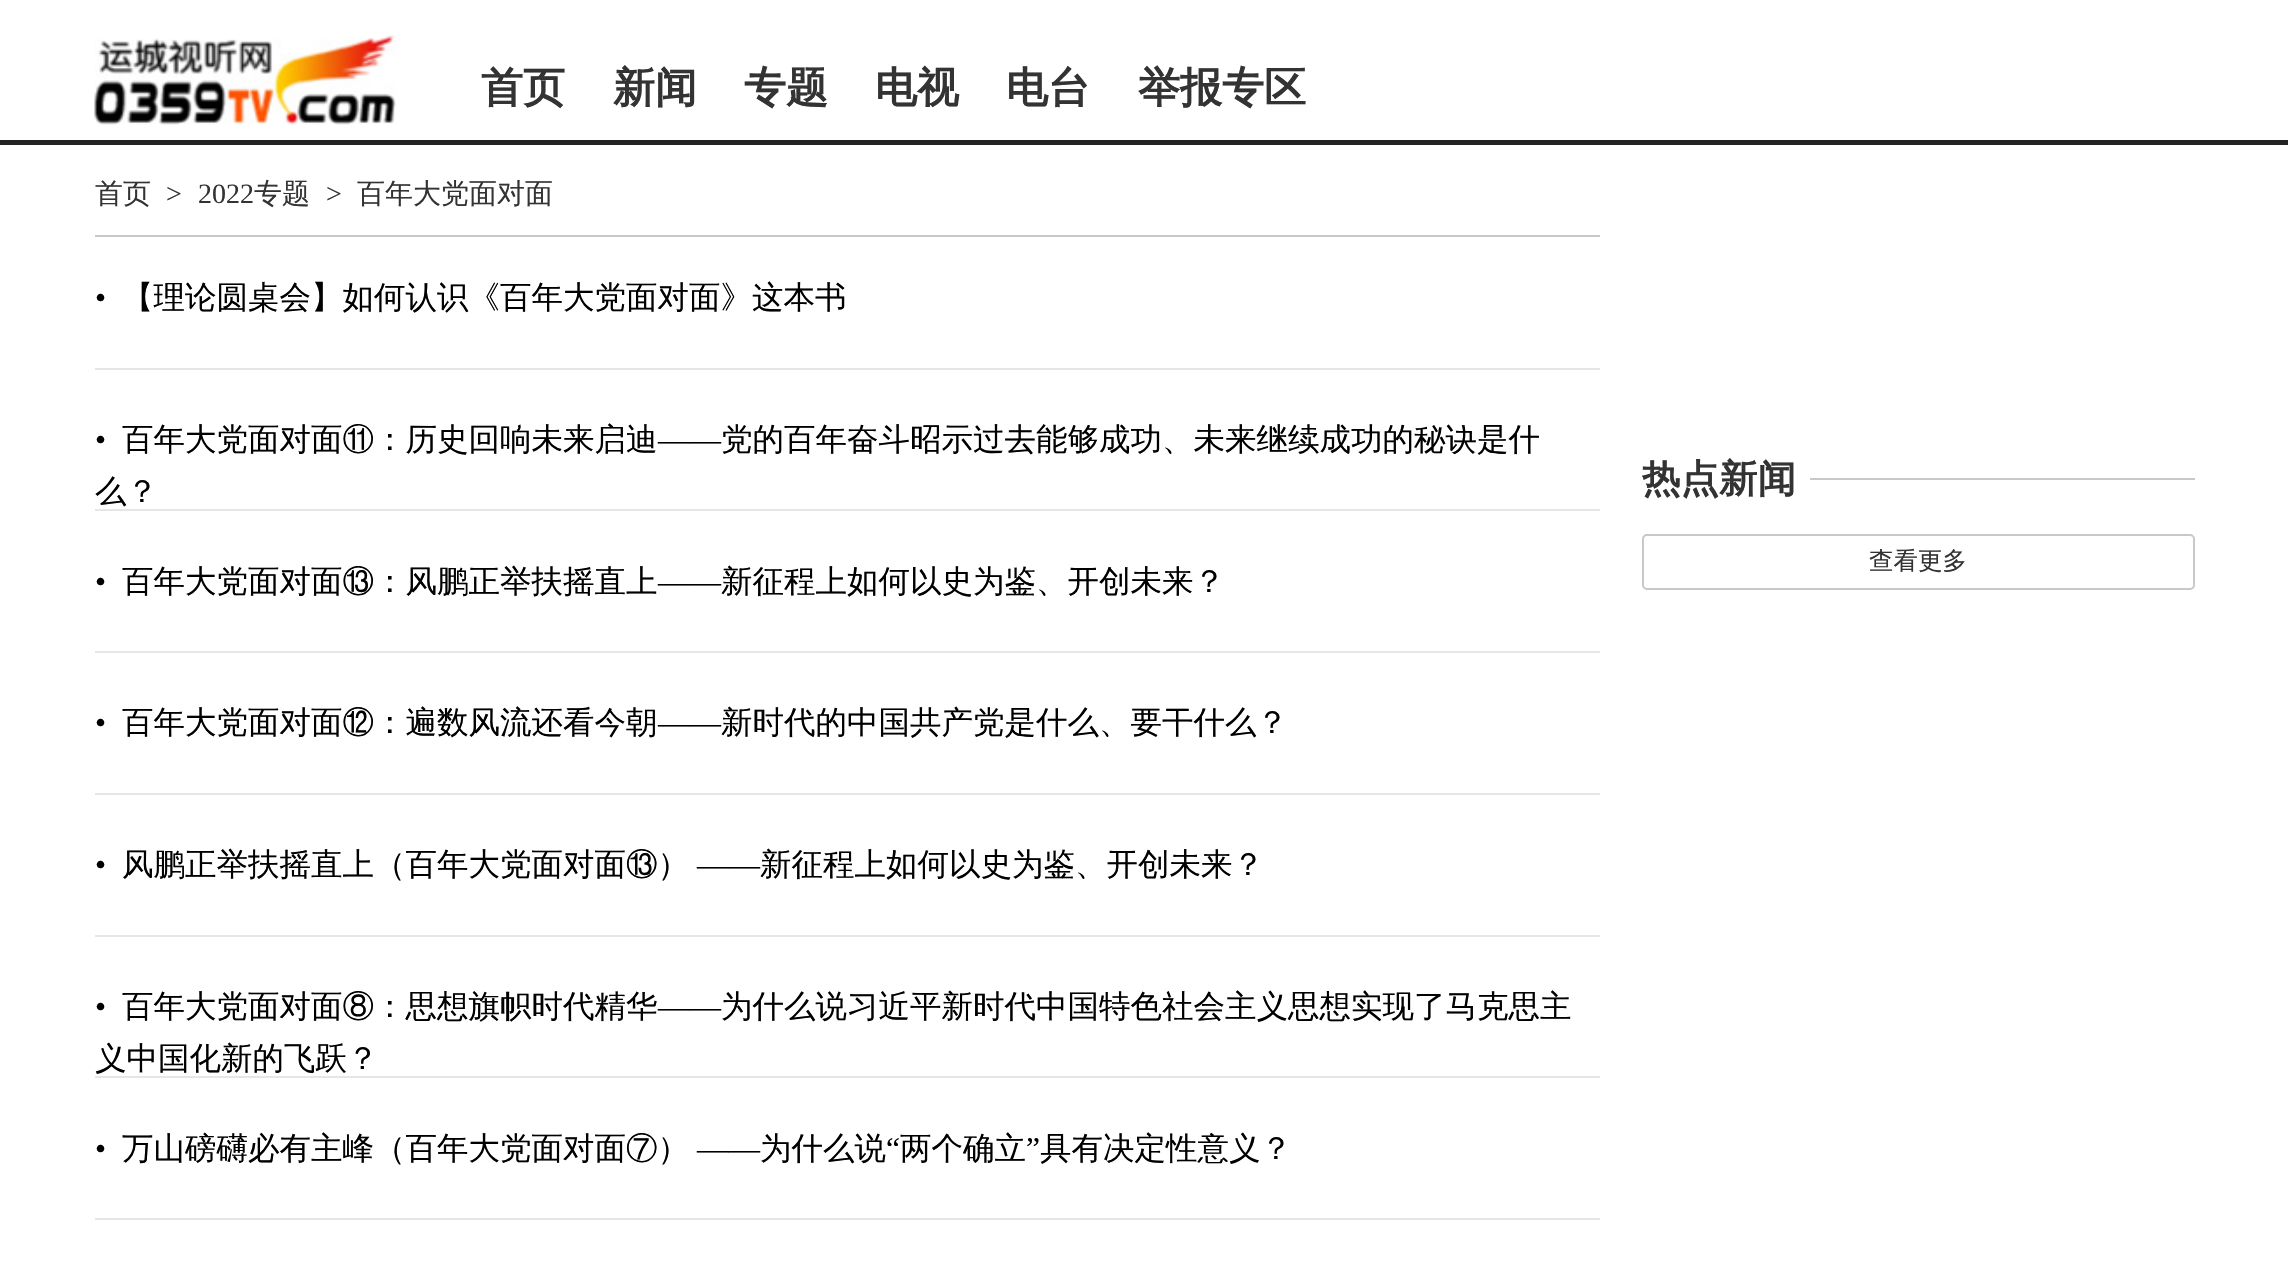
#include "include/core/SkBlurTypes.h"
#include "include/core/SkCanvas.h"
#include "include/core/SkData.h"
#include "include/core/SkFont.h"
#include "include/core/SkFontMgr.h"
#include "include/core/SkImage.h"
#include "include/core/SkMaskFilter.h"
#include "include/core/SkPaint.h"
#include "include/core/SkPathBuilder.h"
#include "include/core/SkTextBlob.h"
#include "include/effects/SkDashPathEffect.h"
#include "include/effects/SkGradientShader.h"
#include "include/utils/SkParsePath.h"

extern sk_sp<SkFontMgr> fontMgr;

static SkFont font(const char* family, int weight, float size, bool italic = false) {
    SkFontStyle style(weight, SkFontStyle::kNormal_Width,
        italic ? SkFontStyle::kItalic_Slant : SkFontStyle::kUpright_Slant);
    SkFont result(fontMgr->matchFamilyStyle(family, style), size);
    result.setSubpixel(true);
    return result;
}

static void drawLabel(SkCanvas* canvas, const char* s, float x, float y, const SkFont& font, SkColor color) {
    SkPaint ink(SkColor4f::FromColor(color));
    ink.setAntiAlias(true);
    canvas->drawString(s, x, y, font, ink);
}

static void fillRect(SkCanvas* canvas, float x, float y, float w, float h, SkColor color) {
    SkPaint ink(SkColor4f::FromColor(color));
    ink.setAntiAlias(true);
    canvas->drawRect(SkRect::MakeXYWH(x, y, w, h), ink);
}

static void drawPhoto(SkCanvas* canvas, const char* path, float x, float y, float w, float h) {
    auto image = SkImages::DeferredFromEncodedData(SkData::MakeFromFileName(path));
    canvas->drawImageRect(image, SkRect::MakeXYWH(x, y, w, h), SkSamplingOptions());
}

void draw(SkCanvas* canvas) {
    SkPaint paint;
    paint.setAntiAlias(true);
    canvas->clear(0xFFFFFFFF);
    fillRect(canvas, 0, 140, 2288, 5, 0xFF232323);
    drawPhoto(canvas, "assets/img1.png", 94, 35, 302, 90);
    SkFont font1 = font("WenQuanYi Zen Hei", 700, 42);
    drawLabel(canvas, "首页", 481, 102, font1, 0xFF333333);
    drawLabel(canvas, "新闻", 613, 102, font1, 0xFF333333);
    drawLabel(canvas, "专题", 744, 102, font1, 0xFF333333);
    drawLabel(canvas, "电视", 875, 102, font1, 0xFF333333);
    drawLabel(canvas, "电台", 1006, 102, font1, 0xFF333333);
    drawLabel(canvas, "举报专区", 1138, 102, font1, 0xFF333333);
    fillRect(canvas, 95, 235, 1505, 2, 0xFFC8C8C8);
    SkFont font2 = font("WenQuanYi Zen Hei", 500, 28);
    drawLabel(canvas, "首页", 95, 203, font2, 0xFF333333);
    SkFont font3 = font("Liberation Serif", 400, 28);
    drawLabel(canvas, ">", 166, 203, font3, 0xFF333333);
    drawLabel(canvas, "2022", 198, 203, font3, 0xFF333333);
    drawLabel(canvas, "专题", 254, 203, font2, 0xFF333333);
    drawLabel(canvas, ">", 326, 203, font3, 0xFF333333);
    drawLabel(canvas, "百年大党面对面", 357, 203, font2, 0xFF333333);
    fillRect(canvas, 95, 368, 1505, 2, 0xFFE6E6E6);
    SkFont font4 = font("Liberation Serif", 400, 31.5f);
    drawLabel(canvas, "•", 95, 308, font4, 0xFF000000);
    SkFont font5 = font("WenQuanYi Zen Hei", 500, 31.5f);
    drawLabel(canvas, "【理论圆桌会】如何认识《百年大党面对面》这本书", 122, 308, font5, 0xFF000000);
    fillRect(canvas, 95, 509, 1505, 2, 0xFFE6E6E6);
    drawLabel(canvas, "•", 95, 450, font4, 0xFF000000);
    drawLabel(canvas, "百年大党面对面⑪：历史回响未来启迪", 122, 450, font5, 0xFF000000);
    drawLabel(canvas, "——", 658, 450, font4, 0xFF000000);
    drawLabel(canvas, "党的百年奋斗昭示过去能够成功、未来继续成功的秘诀是什", 721, 450, font5, 0xFF000000);
    drawLabel(canvas, "么？", 95, 502, font5, 0xFF000000);
    fillRect(canvas, 95, 651, 1505, 2, 0xFFE6E6E6);
    drawLabel(canvas, "•", 95, 592, font4, 0xFF000000);
    drawLabel(canvas, "百年大党面对面⑬：风鹏正举扶摇直上", 122, 592, font5, 0xFF000000);
    drawLabel(canvas, "——", 658, 592, font4, 0xFF000000);
    drawLabel(canvas, "新征程上如何以史为鉴、开创未来？", 721, 592, font5, 0xFF000000);
    fillRect(canvas, 95, 793, 1505, 2, 0xFFE6E6E6);
    drawLabel(canvas, "•", 95, 733, font4, 0xFF000000);
    drawLabel(canvas, "百年大党面对面⑫：遍数风流还看今朝", 122, 733, font5, 0xFF000000);
    drawLabel(canvas, "——", 658, 733, font4, 0xFF000000);
    drawLabel(canvas, "新时代的中国共产党是什么、要干什么？", 721, 733, font5, 0xFF000000);
    fillRect(canvas, 95, 935, 1505, 2, 0xFFE6E6E6);
    drawLabel(canvas, "•", 95, 875, font4, 0xFF000000);
    drawLabel(canvas, "风鹏正举扶摇直上（百年大党面对面⑬）", 122, 875, font5, 0xFF000000);
    drawLabel(canvas, "——", 697, 875, font4, 0xFF000000);
    drawLabel(canvas, "新征程上如何以史为鉴、开创未来？", 760, 875, font5, 0xFF000000);
    fillRect(canvas, 95, 1076, 1505, 2, 0xFFE6E6E6);
    drawLabel(canvas, "•", 95, 1017, font4, 0xFF000000);
    drawLabel(canvas, "百年大党面对面⑧：思想旗帜时代精华", 122, 1017, font5, 0xFF000000);
    drawLabel(canvas, "——", 658, 1017, font4, 0xFF000000);
    drawLabel(canvas, "为什么说习近平新时代中国特色社会主义思想实现了马克思主", 721, 1017, font5, 0xFF000000);
    drawLabel(canvas, "义中国化新的飞跃？", 95, 1069, font5, 0xFF000000);
    fillRect(canvas, 95, 1218, 1505, 2, 0xFFE6E6E6);
    drawLabel(canvas, "万山磅礴必有主峰（百年大党面对面⑦）", 122, 1159, font5, 0xFF000000);
    drawLabel(canvas, "为什么说", 760, 1159, font5, 0xFF000000);
    drawLabel(canvas, "“", 886, 1159, font4, 0xFF000000);
    drawLabel(canvas, "两个确立", 900, 1159, font5, 0xFF000000);
    drawLabel(canvas, "”", 1026, 1159, font4, 0xFF000000);
    drawLabel(canvas, "具有决定性意义？", 1040, 1159, font5, 0xFF000000);
    drawLabel(canvas, "•", 95, 1159, font4, 0xFF000000);
    drawLabel(canvas, "——", 697, 1159, font4, 0xFF000000);
    SkFont font6 = font("WenQuanYi Zen Hei", 700, 38.5f);
    drawLabel(canvas, "热点新闻", 1642, 492, font6, 0xFF333333);
    fillRect(canvas, 1810, 478, 385, 2, 0xFFC8C8C8);
    paint.setStroke(true);
    paint.setStrokeWidth(2);
    paint.setColor(0xFFC8C8C8);
    canvas->drawRoundRect(SkRect::MakeXYWH(1643, 535, 551, 54), 4, 4, paint);
    SkFont font7 = font("WenQuanYi Zen Hei", 500, 24.5f);
    drawLabel(canvas, "查看更多", 1869, 569, font7, 0xFF333333);
}
